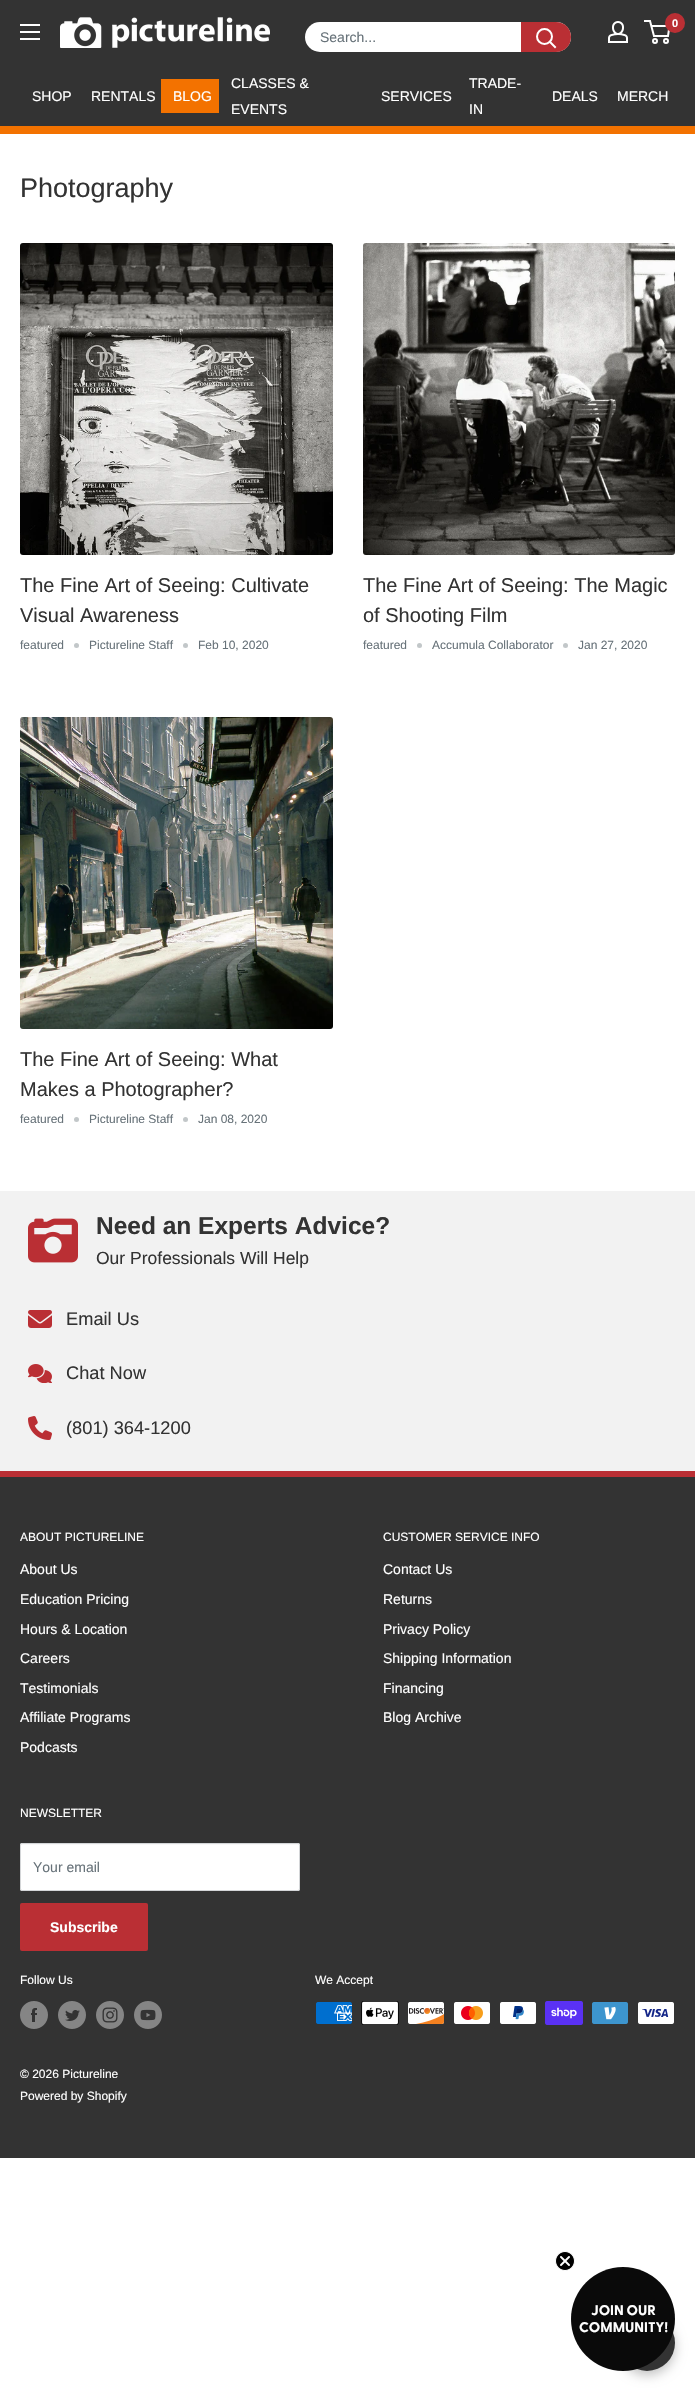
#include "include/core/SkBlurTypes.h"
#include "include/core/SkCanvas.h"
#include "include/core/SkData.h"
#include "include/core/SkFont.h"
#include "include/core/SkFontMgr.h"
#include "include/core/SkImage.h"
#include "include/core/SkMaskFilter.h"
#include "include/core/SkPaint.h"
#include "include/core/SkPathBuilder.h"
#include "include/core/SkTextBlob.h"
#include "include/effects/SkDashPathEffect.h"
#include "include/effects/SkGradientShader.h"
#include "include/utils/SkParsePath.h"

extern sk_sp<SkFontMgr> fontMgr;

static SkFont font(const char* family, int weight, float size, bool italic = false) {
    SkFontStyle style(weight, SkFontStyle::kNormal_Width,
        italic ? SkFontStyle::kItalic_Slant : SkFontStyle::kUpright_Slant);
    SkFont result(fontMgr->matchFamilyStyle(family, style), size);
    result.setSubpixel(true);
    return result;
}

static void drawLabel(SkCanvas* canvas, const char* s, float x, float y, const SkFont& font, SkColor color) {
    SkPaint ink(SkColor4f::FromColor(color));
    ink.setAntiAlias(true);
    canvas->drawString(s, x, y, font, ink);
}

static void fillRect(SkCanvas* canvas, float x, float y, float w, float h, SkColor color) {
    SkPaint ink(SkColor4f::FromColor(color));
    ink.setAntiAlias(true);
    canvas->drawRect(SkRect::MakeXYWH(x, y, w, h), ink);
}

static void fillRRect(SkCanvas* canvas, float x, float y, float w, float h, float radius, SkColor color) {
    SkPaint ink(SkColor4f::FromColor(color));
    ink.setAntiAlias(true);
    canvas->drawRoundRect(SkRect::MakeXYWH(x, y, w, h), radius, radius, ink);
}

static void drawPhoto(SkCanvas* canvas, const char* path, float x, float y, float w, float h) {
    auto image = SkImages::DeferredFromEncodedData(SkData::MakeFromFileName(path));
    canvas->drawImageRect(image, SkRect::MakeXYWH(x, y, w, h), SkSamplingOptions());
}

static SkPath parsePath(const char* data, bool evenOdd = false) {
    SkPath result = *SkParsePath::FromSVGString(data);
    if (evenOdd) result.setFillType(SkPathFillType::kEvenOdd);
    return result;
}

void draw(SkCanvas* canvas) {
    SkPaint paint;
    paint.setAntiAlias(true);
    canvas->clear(0xFFFFFFFF);
    fillRect(canvas, 0, 0, 695, 126, 0xFF333333);
    drawPhoto(canvas, "assets/img1.png", 20, 24, 20, 16);
    drawPhoto(canvas, "assets/img2.png", 60, 17, 210, 31);
    fillRRect(canvas, 305, 22, 266, 30, 15, 0xFFFFFFFF);
    SkFont font1 = font("Liberation Sans", 400, 14);
    drawLabel(canvas, "Search...", 320, 42, font1, 0xFF677279);
    paint.setColor(0xFFBA2F34);
    canvas->drawPath(parsePath("M521 22H556C564.5 22 571 28.5 571 37C571 45.5 564.5 52 556 52H521Z"), paint);
    paint.setStroke(true);
    paint.setStrokeWidth(2);
    paint.setStrokeCap(SkPaint::kSquare_Cap);
    paint.setColor(0xFFFFFFFF);
    canvas->drawPath(parsePath("M555 47L550 42"), paint);
    paint.setStrokeCap(SkPaint::kButt_Cap);
    canvas->drawCircle(544.5f, 36.5f, 7.5f, paint);
    drawPhoto(canvas, "assets/img3.png", 608, 21, 20, 22);
    canvas->drawCircle(655, 41, 2, paint);
    canvas->drawCircle(666, 41, 2, paint);
    canvas->drawPath(parsePath("M651.5 26H669.5L668 36H654L650 21H644"), paint);
    paint.setStroke(false);
    paint.setColor(0xFFBA2F34);
    canvas->drawCircle(675, 23, 10, paint);
    SkFont font2 = font("Liberation Sans", 700, 11);
    drawLabel(canvas, "0", 672, 27, font2, 0xFFFFFFFF);
    drawLabel(canvas, "SHOP", 32, 101, font1, 0xFFFFFFFF);
    drawLabel(canvas, "RENTALS", 91, 101, font1, 0xFFFFFFFF);
    fillRect(canvas, 161, 79, 58, 34, 0xFFF37200);
    drawLabel(canvas, "BLOG", 173, 101, font1, 0xFFFFFFFF);
    drawLabel(canvas, "CLASSES &", 231, 88, font1, 0xFFFFFFFF);
    drawLabel(canvas, "EVENTS", 231, 114, font1, 0xFFFFFFFF);
    drawLabel(canvas, "SERVICES", 381, 101, font1, 0xFFFFFFFF);
    drawLabel(canvas, "TRADE-", 469, 88, font1, 0xFFFFFFFF);
    drawLabel(canvas, "IN", 469, 114, font1, 0xFFFFFFFF);
    drawLabel(canvas, "DEALS", 552, 101, font1, 0xFFFFFFFF);
    drawLabel(canvas, "MERCH", 617, 101, font1, 0xFFFFFFFF);
    fillRect(canvas, 0, 126, 695, 8, 0xFFF37200);
    SkFont font3 = font("Liberation Sans", 400, 27);
    drawLabel(canvas, "Photography", 20, 197, font3, 0xFF333333);
    drawPhoto(canvas, "assets/img4.png", 20, 243, 313, 312);
    SkFont font4 = font("Liberation Sans", 400, 20);
    drawLabel(canvas, "The Fine Art of Seeing: Cultivate", 20, 592, font4, 0xFF333333);
    drawLabel(canvas, "Visual Awareness", 20, 622, font4, 0xFF333333);
    SkFont font5 = font("Liberation Sans", 400, 12);
    drawLabel(canvas, "featured", 20, 649, font5, 0xFF677279);
    paint.setColor(0xFFC2C7C9);
    canvas->drawCircle(76.5f, 645.5f, 2.5f, paint);
    drawLabel(canvas, "Pictureline Staff", 89, 649, font5, 0xFF677279);
    canvas->drawCircle(185.5f, 645.5f, 2.5f, paint);
    drawLabel(canvas, "Feb 10, 2020", 198, 649, font5, 0xFF677279);
    drawPhoto(canvas, "assets/img5.png", 363, 243, 312, 312);
    drawLabel(canvas, "The Fine Art of Seeing: The Magic", 363, 592, font4, 0xFF333333);
    drawLabel(canvas, "of Shooting Film", 363, 622, font4, 0xFF333333);
    drawLabel(canvas, "featured", 363, 649, font5, 0xFF677279);
    canvas->drawCircle(419.5f, 645.5f, 2.5f, paint);
    drawLabel(canvas, "Accumula Collaborator", 432, 649, font5, 0xFF677279);
    canvas->drawCircle(565.5f, 645.5f, 2.5f, paint);
    drawLabel(canvas, "Jan 27, 2020", 578, 649, font5, 0xFF677279);
    drawPhoto(canvas, "assets/img6.png", 20, 717, 313, 312);
    drawLabel(canvas, "The Fine Art of Seeing: What", 20, 1066, font4, 0xFF333333);
    drawLabel(canvas, "Makes a Photographer?", 20, 1096, font4, 0xFF333333);
    drawLabel(canvas, "featured", 20, 1123, font5, 0xFF677279);
    canvas->drawCircle(76.5f, 1119.5f, 2.5f, paint);
    drawLabel(canvas, "Pictureline Staff", 89, 1123, font5, 0xFF677279);
    canvas->drawCircle(185.5f, 1119.5f, 2.5f, paint);
    drawLabel(canvas, "Jan 08, 2020", 198, 1123, font5, 0xFF677279);
    fillRect(canvas, 0, 1191, 695, 280, 0xFFF2F2F2);
    drawPhoto(canvas, "assets/img7.png", 28, 1218, 50, 45);
    SkFont font6 = font("Liberation Sans", 700, 24.5f);
    drawLabel(canvas, "Need an Experts Advice?", 96, 1234, font6, 0xFF333333);
    SkFont font7 = font("Liberation Sans", 400, 17.5f);
    drawLabel(canvas, "Our Professionals Will Help", 96, 1264, font7, 0xFF333333);
    drawPhoto(canvas, "assets/img8.png", 28, 1310, 24, 18);
    SkFont font8 = font("Liberation Sans", 400, 18.25f);
    drawLabel(canvas, "Email Us", 66, 1325, font8, 0xFF333333);
    drawPhoto(canvas, "assets/img9.png", 28, 1364, 24, 19);
    drawLabel(canvas, "Chat Now", 66, 1379, font8, 0xFF333333);
    drawPhoto(canvas, "assets/img10.png", 28, 1416, 24, 24);
    drawLabel(canvas, "(801) 364-1200", 66, 1434, font8, 0xFF333333);
    fillRect(canvas, 0, 1471, 695, 6, 0xFFBA2F34);
    fillRect(canvas, 0, 1477, 695, 681, 0xFF333333);
    drawLabel(canvas, "ABOUT PICTURELINE", 20, 1541, font5, 0xFFFFFFFF);
    drawLabel(canvas, "About Us", 20, 1574, font1, 0xFFFFFFFF);
    drawLabel(canvas, "Education Pricing", 20, 1604, font1, 0xFFFFFFFF);
    drawLabel(canvas, "Hours & Location", 20, 1634, font1, 0xFFFFFFFF);
    drawLabel(canvas, "Careers", 20, 1663, font1, 0xFFFFFFFF);
    drawLabel(canvas, "Testimonials", 20, 1693, font1, 0xFFFFFFFF);
    drawLabel(canvas, "Affiliate Programs", 20, 1722, font1, 0xFFFFFFFF);
    drawLabel(canvas, "Podcasts", 20, 1752, font1, 0xFFFFFFFF);
    drawLabel(canvas, "CUSTOMER SERVICE INFO", 383, 1541, font5, 0xFFFFFFFF);
    drawLabel(canvas, "Contact Us", 383, 1574, font1, 0xFFFFFFFF);
    drawLabel(canvas, "Returns", 383, 1604, font1, 0xFFFFFFFF);
    drawLabel(canvas, "Privacy Policy", 383, 1634, font1, 0xFFFFFFFF);
    drawLabel(canvas, "Shipping Information", 383, 1663, font1, 0xFFFFFFFF);
    drawLabel(canvas, "Financing", 383, 1693, font1, 0xFFFFFFFF);
    drawLabel(canvas, "Blog Archive", 383, 1722, font1, 0xFFFFFFFF);
    drawLabel(canvas, "NEWSLETTER", 20, 1817, font5, 0xFFFFFFFF);
    fillRRect(canvas, 20, 1843, 280, 48, 2, 0xFFFFFFFF);
    paint.setColor(0xFFF8F8F8);
    canvas->drawPath(parsePath("M22 1845H298C299 1845 299 1845 299 1846C299 1845 299 1844 298 1844H22H21V1846C21 1845 21 1845 22 1845Z"), paint);
    paint.setStroke(true);
    paint.setStrokeWidth(1);
    paint.setColor(0xFFD4D6D8);
    canvas->drawRoundRect(SkRect::MakeXYWH(20.5f, 1843.5f, 279, 47), 1.5f, 1.5f, paint);
    drawLabel(canvas, "Your email", 33, 1872, font1, 0xFF677279);
    fillRRect(canvas, 20, 1903, 128, 48, 2, 0xFFBA2F34);
    SkFont font9 = font("Liberation Sans", 700, 14);
    drawLabel(canvas, "Subscribe", 50, 1932, font9, 0xFFFFFFFF);
    drawLabel(canvas, "Follow Us", 20, 1984, font5, 0xFFFFFFFF);
    drawPhoto(canvas, "assets/img11.png", 20, 2001, 28, 28);
    drawPhoto(canvas, "assets/img12.png", 58, 2001, 28, 28);
    drawPhoto(canvas, "assets/img13.png", 96, 2001, 28, 28);
    drawPhoto(canvas, "assets/img14.png", 134, 2001, 28, 28);
    drawLabel(canvas, "We Accept", 315, 1984, font5, 0xFFFFFFFF);
    drawPhoto(canvas, "assets/img15.png", 316, 2002, 36, 22);
    drawPhoto(canvas, "assets/img16.png", 361, 2001, 38, 24);
    drawPhoto(canvas, "assets/img17.png", 408, 2002, 36, 22);
    drawPhoto(canvas, "assets/img18.png", 454, 2002, 36, 22);
    drawPhoto(canvas, "assets/img19.png", 500, 2002, 36, 22);
    drawPhoto(canvas, "assets/img20.png", 545, 2001, 38, 24);
    drawPhoto(canvas, "assets/img21.png", 592, 2002, 36, 22);
    drawPhoto(canvas, "assets/img22.png", 638, 2002, 36, 22);
    drawLabel(canvas, "© 2026 Pictureline", 20, 2078, font5, 0xFFFFFFFF);
    drawLabel(canvas, "Powered by Shopify", 20, 2100, font5, 0xFFFFFFFF);
    paint.setStroke(false);
    paint.setColor(0x40000000);
    paint.setMaskFilter(SkMaskFilter::MakeBlur(kNormal_SkBlurStyle, 6));
    canvas->drawRoundRect(SkRect::MakeXYWH(619, 2319, 56, 56), 28, 28, paint);
    paint.setMaskFilter(nullptr);
    paint.setColor(0xFF333333);
    canvas->drawCircle(647, 2343, 28, paint);
    paint.setColor(0xFF0A0A0A);
    canvas->drawCircle(623, 2319, 52, paint);
    drawPhoto(canvas, "assets/img23.png", 555, 2251, 20, 20);
    SkFont font10 = font("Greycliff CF", 700, 14);
    drawLabel(canvas, "JOIN OUR", 591, 2315, font10, 0xFFFFFFFF);
    drawLabel(canvas, "COMMUNITY!", 579, 2332, font10, 0xFFFFFFFF);
}
